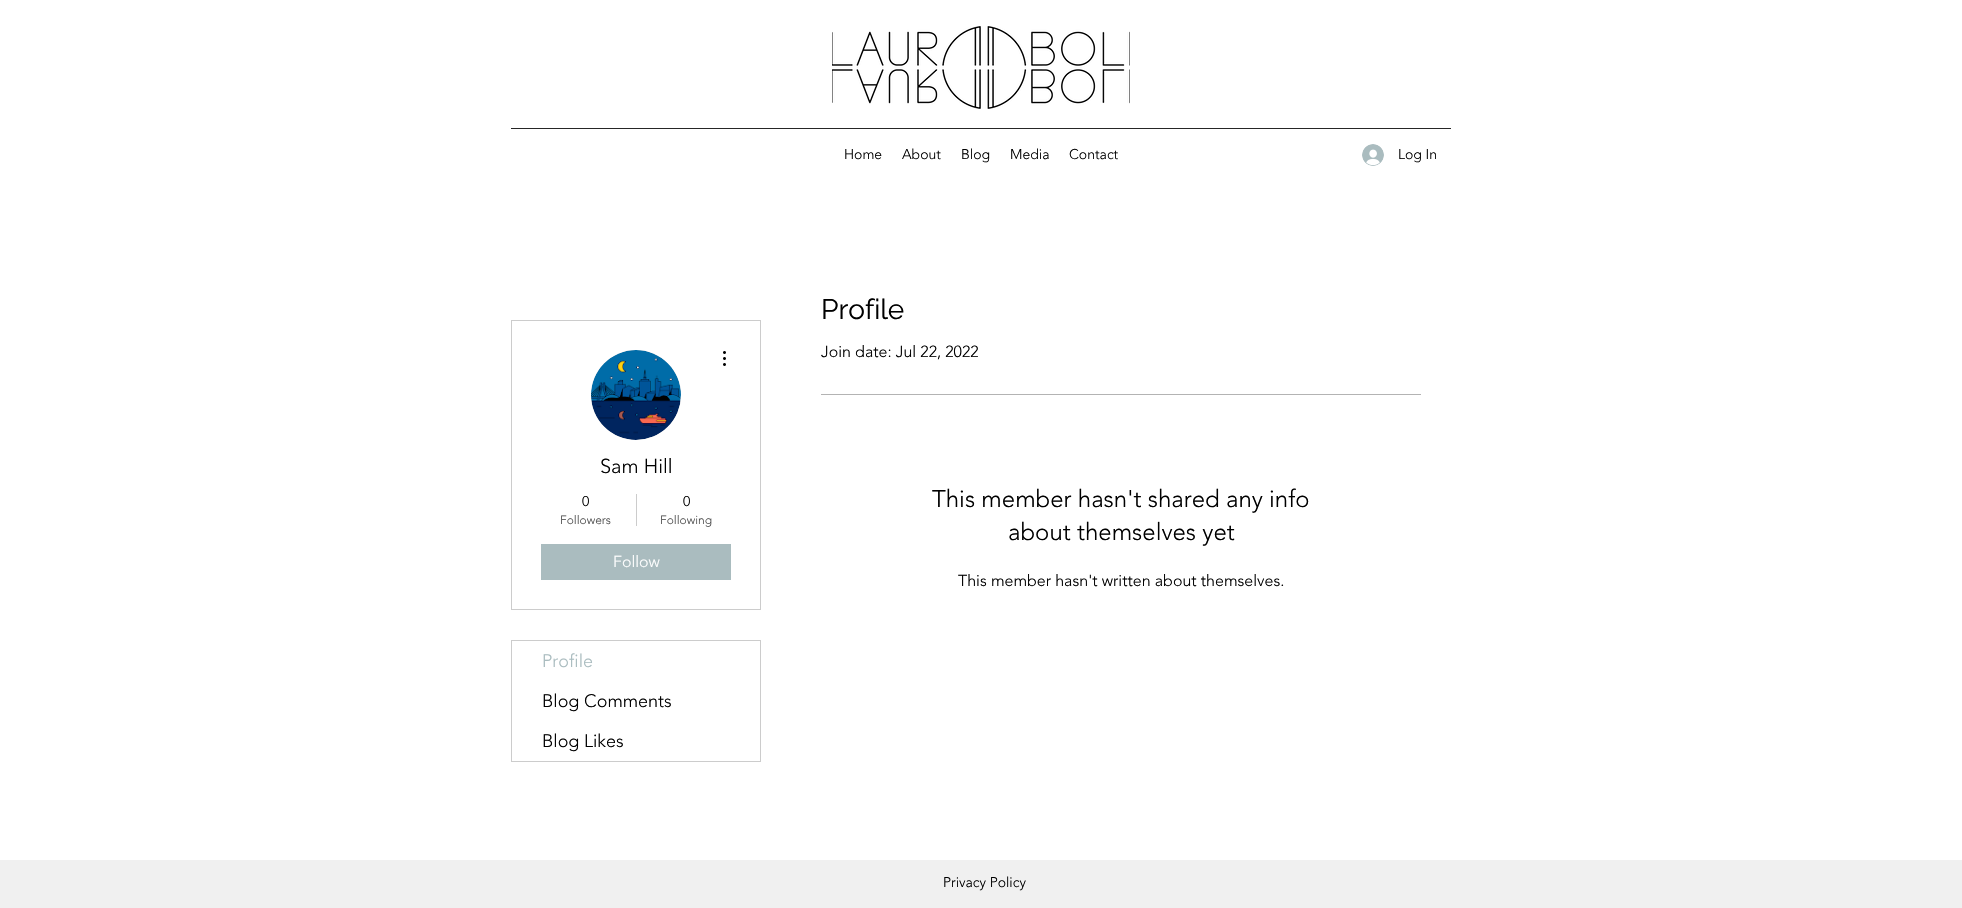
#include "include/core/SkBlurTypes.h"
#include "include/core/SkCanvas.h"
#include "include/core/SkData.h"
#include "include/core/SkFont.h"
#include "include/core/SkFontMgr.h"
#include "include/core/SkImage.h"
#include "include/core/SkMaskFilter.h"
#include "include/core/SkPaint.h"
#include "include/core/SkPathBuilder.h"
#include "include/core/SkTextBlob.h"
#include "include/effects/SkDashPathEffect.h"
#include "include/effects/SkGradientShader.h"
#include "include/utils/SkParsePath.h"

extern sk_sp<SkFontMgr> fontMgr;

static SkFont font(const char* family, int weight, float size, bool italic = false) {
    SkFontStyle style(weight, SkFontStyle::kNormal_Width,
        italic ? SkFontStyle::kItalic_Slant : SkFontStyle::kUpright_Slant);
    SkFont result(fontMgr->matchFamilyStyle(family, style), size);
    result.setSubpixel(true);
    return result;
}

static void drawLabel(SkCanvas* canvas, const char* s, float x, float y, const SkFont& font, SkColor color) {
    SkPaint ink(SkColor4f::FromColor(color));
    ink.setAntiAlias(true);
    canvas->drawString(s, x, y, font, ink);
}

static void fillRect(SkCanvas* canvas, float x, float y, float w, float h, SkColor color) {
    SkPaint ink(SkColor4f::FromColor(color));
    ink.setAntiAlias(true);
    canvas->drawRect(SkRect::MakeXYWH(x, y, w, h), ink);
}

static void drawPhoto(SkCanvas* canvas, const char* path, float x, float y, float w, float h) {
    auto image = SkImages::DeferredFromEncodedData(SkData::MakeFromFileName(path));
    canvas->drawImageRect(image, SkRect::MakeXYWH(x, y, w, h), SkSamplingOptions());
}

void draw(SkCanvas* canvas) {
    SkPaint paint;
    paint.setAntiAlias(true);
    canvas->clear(0xFFFFFFFF);
    drawPhoto(canvas, "assets/img1.png", 832, 26, 298, 83);
    fillRect(canvas, 511, 128, 940, 1, 0xFF262626);
    SkFont font1 = font("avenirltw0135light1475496", 300, 14);
    drawLabel(canvas, "Home", 844, 159, font1, 0xFF000000);
    drawLabel(canvas, "About", 902, 159, font1, 0xFF000000);
    drawLabel(canvas, "Blog", 961, 159, font1, 0xFF000000);
    drawLabel(canvas, "Media", 1010, 159, font1, 0xFF000000);
    drawLabel(canvas, "Contact", 1069, 159, font1, 0xFF000000);
    drawPhoto(canvas, "assets/img2.png", 1362, 144, 22, 22);
    drawLabel(canvas, "Log In", 1398, 159, font1, 0xFF000000);
    paint.setStroke(true);
    paint.setStrokeWidth(1);
    paint.setColor(0xFFCCCCCC);
    canvas->drawRect(SkRect::MakeXYWH(511.5f, 320.5f, 249, 289), paint);
    paint.setStroke(false);
    paint.setColor(0xFFD8D8D8);
    canvas->drawCircle(636, 395, 45, paint);
    drawPhoto(canvas, "assets/img3.png", 591, 350, 90, 90);
    drawPhoto(canvas, "assets/img4.png", 723, 351, 3, 15);
    SkFont font2 = font("avenirltw0135light1475496", 300, 20);
    drawLabel(canvas, "Sam Hill", 600, 473, font2, 0xFF000000);
    drawLabel(canvas, "0", 582, 506, font1, 0xFF000000);
    SkFont font3 = font("avenirltw0135light1475496", 300, 12);
    drawLabel(canvas, "Followers", 560, 524, font3, 0xFF4D4D4D);
    fillRect(canvas, 636, 494, 1, 32, 0xFFCCCCCC);
    drawLabel(canvas, "0", 683, 506, font1, 0xFF000000);
    drawLabel(canvas, "Following", 660, 524, font3, 0xFF4D4D4D);
    fillRect(canvas, 541, 544, 190, 36, 0xFFAABCBF);
    SkFont font4 = font("avenirltw0135light1475496", 300, 16);
    drawLabel(canvas, "Follow", 613, 567, font4, 0xFFFFFFFF);
    paint.setStroke(true);
    paint.setColor(0xFFCCCCCC);
    canvas->drawRect(SkRect::MakeXYWH(511.5f, 640.5f, 249, 121), paint);
    SkFont font5 = font("avenirltw0135light1475496", 300, 18);
    drawLabel(canvas, "Profile", 542, 667, font5, 0xFFAABCBF);
    drawLabel(canvas, "Blog Comments", 542, 707, font5, 0xFF000000);
    drawLabel(canvas, "Blog Likes", 542, 747, font5, 0xFF000000);
    SkFont font6 = font("Raleway", 400, 28);
    drawLabel(canvas, "Profile", 821, 319, font6, 0xFF000000);
    drawLabel(canvas, "Join date: Jul 22, 2022", 821, 357, font4, 0xFF000000);
    fillRect(canvas, 821, 394, 600, 1, 0xFFB3B3B3);
    SkFont font7 = font("avenirltw0135light1475496", 300, 24);
    drawLabel(canvas, "This member hasn't shared any info", 932, 507, font7, 0xFF000000);
    drawLabel(canvas, "about themselves yet", 1008, 540, font7, 0xFF000000);
    drawLabel(canvas, "This member hasn't written about themselves.", 958, 586, font4, 0xFF000000);
    fillRect(canvas, 0, 860, 1962, 48, 0xFFF0F0F0);
    drawLabel(canvas, "Privacy Policy", 943, 887, font1, 0xFF000000);
}
